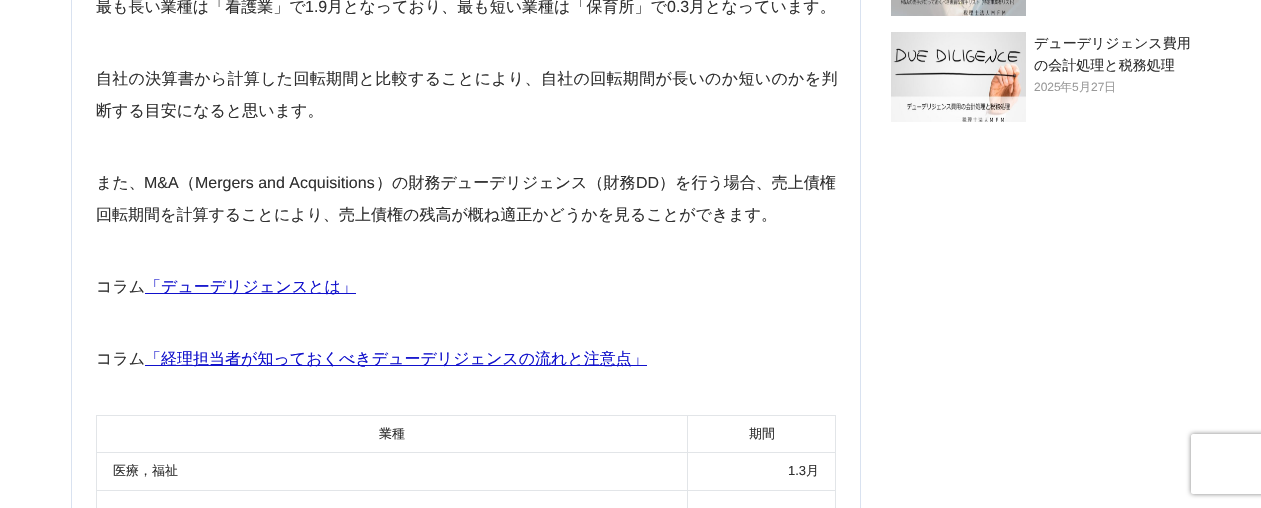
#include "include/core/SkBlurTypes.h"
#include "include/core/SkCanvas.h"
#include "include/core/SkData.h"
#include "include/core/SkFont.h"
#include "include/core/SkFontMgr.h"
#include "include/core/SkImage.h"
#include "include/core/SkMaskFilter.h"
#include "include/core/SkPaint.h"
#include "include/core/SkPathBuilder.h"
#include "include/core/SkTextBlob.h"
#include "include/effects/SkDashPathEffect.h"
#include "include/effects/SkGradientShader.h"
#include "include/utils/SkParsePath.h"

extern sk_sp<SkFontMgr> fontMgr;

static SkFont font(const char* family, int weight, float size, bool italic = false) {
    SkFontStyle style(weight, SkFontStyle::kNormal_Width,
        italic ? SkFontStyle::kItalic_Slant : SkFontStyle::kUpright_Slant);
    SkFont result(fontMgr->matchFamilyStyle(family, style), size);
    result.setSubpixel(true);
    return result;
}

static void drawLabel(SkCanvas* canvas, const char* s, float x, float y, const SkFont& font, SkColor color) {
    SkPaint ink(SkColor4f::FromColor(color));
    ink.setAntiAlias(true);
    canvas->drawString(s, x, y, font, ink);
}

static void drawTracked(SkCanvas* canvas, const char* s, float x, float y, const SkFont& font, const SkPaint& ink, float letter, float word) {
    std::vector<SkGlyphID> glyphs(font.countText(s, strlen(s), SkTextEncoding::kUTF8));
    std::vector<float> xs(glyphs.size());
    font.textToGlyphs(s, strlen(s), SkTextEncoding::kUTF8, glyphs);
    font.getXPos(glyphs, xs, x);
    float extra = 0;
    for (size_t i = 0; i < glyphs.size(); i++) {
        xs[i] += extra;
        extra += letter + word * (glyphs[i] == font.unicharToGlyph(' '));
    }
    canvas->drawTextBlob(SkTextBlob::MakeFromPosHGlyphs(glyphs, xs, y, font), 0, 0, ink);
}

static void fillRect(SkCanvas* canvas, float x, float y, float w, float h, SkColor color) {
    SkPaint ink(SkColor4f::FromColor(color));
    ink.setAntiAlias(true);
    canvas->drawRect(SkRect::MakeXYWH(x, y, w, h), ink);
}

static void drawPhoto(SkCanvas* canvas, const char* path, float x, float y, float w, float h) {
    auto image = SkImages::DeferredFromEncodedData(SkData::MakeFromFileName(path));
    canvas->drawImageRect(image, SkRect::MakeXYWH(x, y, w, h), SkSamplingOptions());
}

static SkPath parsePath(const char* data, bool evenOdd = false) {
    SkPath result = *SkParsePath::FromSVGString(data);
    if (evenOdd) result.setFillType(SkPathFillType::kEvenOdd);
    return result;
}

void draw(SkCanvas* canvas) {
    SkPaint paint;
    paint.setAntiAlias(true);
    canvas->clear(0xFFFFFFFF);
    paint.setStroke(true);
    paint.setStrokeWidth(1);
    paint.setColor(0xFFD9E2F0);
    canvas->drawRect(SkRect::MakeXYWH(71.5f, -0.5f, 789, 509), paint);
    SkFont font1 = font("WenQuanYi Zen Hei", 500, 16);
    drawLabel(canvas, "最も長い業種は「看護業」で", 96, 12, font1, 0xFF303030);
    SkFont font2 = font("Liberation Sans", 400, 16);
    drawLabel(canvas, "1.9", 305, 12, font2, 0xFF303030);
    drawLabel(canvas, "月となっており、最も短い業種は「保育所」で", 327, 12, font1, 0xFF303030);
    drawLabel(canvas, "0.3", 667, 12, font2, 0xFF303030);
    drawLabel(canvas, "月となっています。", 689, 12, font1, 0xFF303030);
    paint.setStroke(false);
    paint.setColor(0xFF303030);
    drawTracked(canvas, "自社の決算書から計算した回転期間と比較することにより、自社の回転期間が長いのか短いのかを判", 96, 84, font1, paint, 0.3f, 0);
    drawLabel(canvas, "断する目安になると思います。", 96, 116, font1, 0xFF303030);
    drawLabel(canvas, "また、", 96, 188, font1, 0xFF303030);
    drawLabel(canvas, "M&A", 144, 188, font2, 0xFF303030);
    drawLabel(canvas, "（", 179, 188, font1, 0xFF303030);
    drawLabel(canvas, "Mergers and Acquisitions", 195, 188, font2, 0xFF303030);
    drawLabel(canvas, "）の財務デューデリジェンス（財務", 376, 188, font1, 0xFF303030);
    drawLabel(canvas, "DD", 636, 188, font2, 0xFF303030);
    drawLabel(canvas, "）を行う場合、売上債権", 659, 188, font1, 0xFF303030);
    drawLabel(canvas, "回転期間を計算することにより、売上債権の残高が概ね適正かどうかを見ることができます。", 96, 220, font1, 0xFF303030);
    drawLabel(canvas, "コラム", 96, 292, font1, 0xFF303030);
    fillRect(canvas, 145, 293, 211, 1, 0xFF1111CC);
    drawLabel(canvas, "「デューデリジェンスとは」", 145, 292, font1, 0xFF1111CC);
    drawLabel(canvas, "コラム", 96, 364, font1, 0xFF303030);
    fillRect(canvas, 145, 365, 502, 1, 0xFF1111CC);
    drawLabel(canvas, "「経理担当者が知っておくべきデューデリジェンスの流れと注意点」", 145, 364, font1, 0xFF1111CC);
    fillRect(canvas, 687, 415, 149, 1, 0xFFE2E5E8);
    fillRect(canvas, 687, 452, 149, 1, 0xFFE2E5E8);
    fillRect(canvas, 687, 490, 149, 1, 0xFFE2E5E8);
    fillRect(canvas, 687, 490, 1, 18, 0xFFE2E5E8);
    fillRect(canvas, 96, 490, 592, 1, 0xFFE2E5E8);
    fillRect(canvas, 687, 452, 1, 39, 0xFFE2E5E8);
    fillRect(canvas, 96, 452, 592, 1, 0xFFE2E5E8);
    fillRect(canvas, 687, 415, 1, 38, 0xFFE2E5E8);
    fillRect(canvas, 96, 415, 592, 1, 0xFFE2E5E8);
    fillRect(canvas, 96, 490, 1, 18, 0xFFE2E5E8);
    fillRect(canvas, 96, 452, 1, 39, 0xFFE2E5E8);
    fillRect(canvas, 96, 415, 1, 38, 0xFFE2E5E8);
    SkFont font3 = font("WenQuanYi Zen Hei", 500, 13);
    drawLabel(canvas, "業種", 379, 438, font3, 0xFF303030);
    fillRect(canvas, 835, 490, 1, 18, 0xFFE2E5E8);
    fillRect(canvas, 835, 452, 1, 39, 0xFFE2E5E8);
    fillRect(canvas, 835, 415, 1, 38, 0xFFE2E5E8);
    drawLabel(canvas, "期間", 749, 438, font3, 0xFF303030);
    drawLabel(canvas, "医療，福祉", 113, 475, font3, 0xFF303030);
    SkFont font4 = font("Liberation Sans", 400, 13);
    drawLabel(canvas, "1.3", 788, 475, font4, 0xFF303030);
    drawLabel(canvas, "月", 806, 475, font3, 0xFF303030);
    drawPhoto(canvas, "assets/img1.png", 891, 0, 135, 16);
    drawPhoto(canvas, "assets/img2.png", 891, 32, 135, 90);
    SkFont font5 = font("WenQuanYi Zen Hei", 500, 14);
    drawLabel(canvas, "デューデリジェンス費用", 1034, 48, font5, 0xFF303030);
    drawLabel(canvas, "の会計処理と税務処理", 1034, 70, font5, 0xFF303030);
    SkFont font6 = font("Liberation Sans", 400, 12);
    drawLabel(canvas, "2025", 1034, 91, font6, 0xFF999999);
    SkFont font7 = font("WenQuanYi Zen Hei", 500, 12);
    drawLabel(canvas, "年", 1060, 91, font7, 0xFF999999);
    drawLabel(canvas, "5", 1072, 91, font6, 0xFF999999);
    drawLabel(canvas, "月", 1079, 91, font7, 0xFF999999);
    drawLabel(canvas, "27", 1091, 91, font6, 0xFF999999);
    drawLabel(canvas, "日", 1104, 91, font7, 0xFF999999);
    canvas->save();
    canvas->clipPath(parsePath("M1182 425H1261V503H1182ZM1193 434H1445C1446 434 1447 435 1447 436V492C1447 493 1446 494 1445 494H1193C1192 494 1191 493 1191 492V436C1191 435 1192 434 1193 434Z", true), true);
    paint.setColor(0xFF808080);
    paint.setMaskFilter(SkMaskFilter::MakeBlur(kNormal_SkBlurStyle, 2.5f));
    canvas->drawRoundRect(SkRect::MakeXYWH(1191, 434, 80, 60), 2, 2, paint);
    paint.setMaskFilter(nullptr);
    canvas->restore();
}
